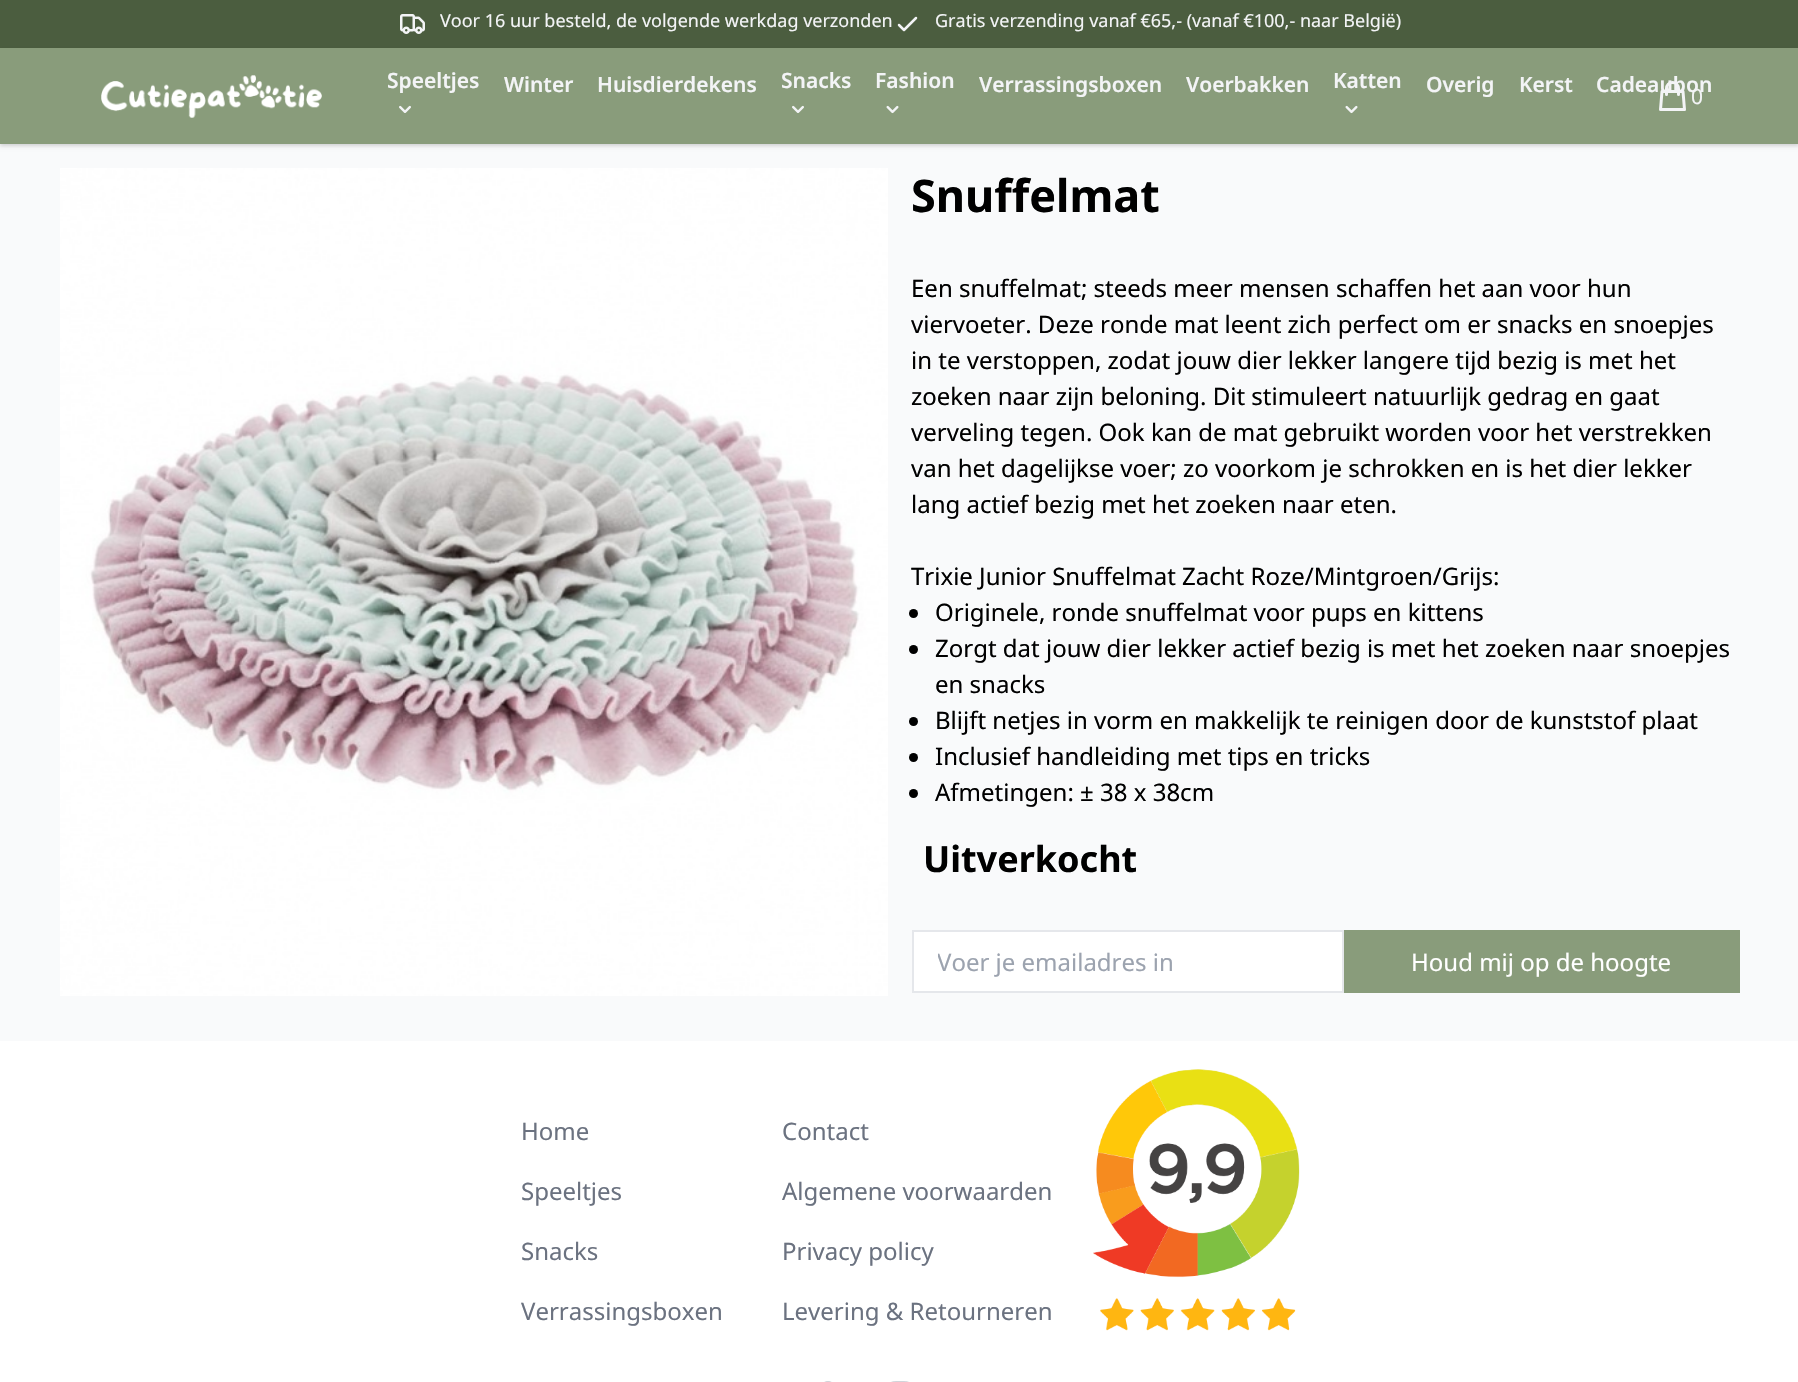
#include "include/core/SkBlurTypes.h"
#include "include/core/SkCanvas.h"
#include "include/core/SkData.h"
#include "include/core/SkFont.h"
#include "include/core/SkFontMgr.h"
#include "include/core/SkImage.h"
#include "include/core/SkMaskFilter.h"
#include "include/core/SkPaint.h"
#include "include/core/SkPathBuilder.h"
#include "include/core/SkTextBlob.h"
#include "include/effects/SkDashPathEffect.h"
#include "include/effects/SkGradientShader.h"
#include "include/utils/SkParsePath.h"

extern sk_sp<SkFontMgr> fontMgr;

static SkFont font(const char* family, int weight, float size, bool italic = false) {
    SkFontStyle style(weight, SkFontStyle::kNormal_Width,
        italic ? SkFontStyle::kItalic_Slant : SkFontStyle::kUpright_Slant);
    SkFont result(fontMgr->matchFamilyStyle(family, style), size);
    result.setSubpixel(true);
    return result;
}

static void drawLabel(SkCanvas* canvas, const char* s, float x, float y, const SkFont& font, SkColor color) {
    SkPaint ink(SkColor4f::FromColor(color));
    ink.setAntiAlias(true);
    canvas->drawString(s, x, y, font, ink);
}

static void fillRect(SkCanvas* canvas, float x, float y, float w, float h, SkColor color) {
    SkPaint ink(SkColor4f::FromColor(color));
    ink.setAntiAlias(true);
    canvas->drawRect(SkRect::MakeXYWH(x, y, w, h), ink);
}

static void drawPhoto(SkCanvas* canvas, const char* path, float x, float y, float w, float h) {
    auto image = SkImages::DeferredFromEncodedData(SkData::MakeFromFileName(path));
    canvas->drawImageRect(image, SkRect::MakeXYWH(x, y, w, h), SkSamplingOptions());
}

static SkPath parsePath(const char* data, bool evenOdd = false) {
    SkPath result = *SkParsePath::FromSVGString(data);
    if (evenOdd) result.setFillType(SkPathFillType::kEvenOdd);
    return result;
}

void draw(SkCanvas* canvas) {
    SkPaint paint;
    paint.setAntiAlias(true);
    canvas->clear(0xFFF9FAFB);
    fillRect(canvas, 0, 0, 1798, 48, 0xFF4B5D3F);
    drawPhoto(canvas, "assets/img1.png", 400, 14, 25, 20);
    SkFont font1 = font("Noto Sans", 400, 18);
    drawLabel(canvas, "Voor 16 uur besteld, de volgende werkdag verzonden", 440, 27, font1, 0xFFF3F4F6);
    paint.setStroke(true);
    paint.setStrokeWidth(2.5f);
    paint.setStrokeCap(SkPaint::kRound_Cap);
    paint.setStrokeJoin(SkPaint::kRound_Join);
    paint.setColor(0xFFF3F4F6);
    canvas->drawPath(parsePath("M899 25L904 30L916 18"), paint);
    drawLabel(canvas, "Gratis verzending vanaf €65,- (vanaf €100,- naar België)", 935, 27, font1, 0xFFF3F4F6);
    paint.setStroke(false);
    paint.setColor(0x0F000000);
    paint.setMaskFilter(SkMaskFilter::MakeBlur(kNormal_SkBlurStyle, 1.5f));
    canvas->drawRect(SkRect::MakeXYWH(0, 50, 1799, 96), paint);
    paint.setMaskFilter(nullptr);
    paint.setColor(0x1A000000);
    paint.setMaskFilter(SkMaskFilter::MakeBlur(kNormal_SkBlurStyle, 2));
    canvas->drawRect(SkRect::MakeXYWH(0, 50, 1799, 96), paint);
    paint.setMaskFilter(nullptr);
    fillRect(canvas, 0, 48, 1798, 96, 0xFF899C7B);
    drawPhoto(canvas, "assets/img2.png", 101, 75, 221, 43);
    SkFont font2 = font("Noto Sans", 600, 21);
    drawLabel(canvas, "Speeltjes", 387, 88, font2, 0xFFF3F4F6);
    drawPhoto(canvas, "assets/img3.png", 399, 105, 12, 8);
    drawLabel(canvas, "Winter", 504, 92, font2, 0xFFF3F4F6);
    drawLabel(canvas, "Huisdierdekens", 597, 92, font2, 0xFFF3F4F6);
    drawLabel(canvas, "Snacks", 781, 88, font2, 0xFFF3F4F6);
    drawPhoto(canvas, "assets/img3.png", 792, 105, 12, 8);
    drawLabel(canvas, "Fashion", 875, 88, font2, 0xFFF3F4F6);
    drawPhoto(canvas, "assets/img4.png", 886, 105, 13, 9);
    drawLabel(canvas, "Verrassingsboxen", 979, 92, font2, 0xFFF3F4F6);
    drawLabel(canvas, "Voerbakken", 1186, 92, font2, 0xFFF3F4F6);
    drawLabel(canvas, "Katten", 1333, 88, font2, 0xFFF3F4F6);
    drawPhoto(canvas, "assets/img4.png", 1345, 105, 13, 9);
    drawLabel(canvas, "Overig", 1426, 92, font2, 0xFFF3F4F6);
    drawLabel(canvas, "Kerst", 1519, 92, font2, 0xFFF3F4F6);
    paint.setStroke(true);
    paint.setStrokeWidth(3);
    paint.setColor(0xFFF3F4F6);
    canvas->drawPath(parsePath("M1678.5 94.5V88.5C1678.5 85 1676 82.5 1672.5 82.5C1669 82.5 1666.5 85 1666.5 88.5V94.5M1662 91.5H1683L1684.5 109.5H1660.5Z"), paint);
    drawLabel(canvas, "Cadeaubon", 1596, 92, font2, 0xFFF3F4F6);
    SkFont font3 = font("Noto Sans", 400, 21);
    drawLabel(canvas, "0", 1691, 104, font3, 0xFFF3F4F6);
    drawPhoto(canvas, "assets/img5.png", 60, 168, 828, 828);
    SkFont font4 = font("Noto Sans", 700, 45);
    drawLabel(canvas, "Snuffelmat", 911, 212, font4, 0xFF000000);
    SkFont font5 = font("Noto Sans", 400, 24);
    drawLabel(canvas, "Een snuffelmat; steeds meer mensen schaffen het aan voor hun", 911, 297, font5, 0xFF000000);
    drawLabel(canvas, "viervoeter. Deze ronde mat leent zich perfect om er snacks en snoepjes", 911, 333, font5, 0xFF000000);
    drawLabel(canvas, "in te verstoppen, zodat jouw dier lekker langere tijd bezig is met het", 911, 369, font5, 0xFF000000);
    drawLabel(canvas, "zoeken naar zijn beloning. Dit stimuleert natuurlijk gedrag en gaat", 911, 405, font5, 0xFF000000);
    drawLabel(canvas, "verveling tegen. Ook kan de mat gebruikt worden voor het verstrekken", 911, 441, font5, 0xFF000000);
    drawLabel(canvas, "van het dagelijkse voer; zo voorkom je schrokken en is het dier lekker", 911, 477, font5, 0xFF000000);
    drawLabel(canvas, "lang actief bezig met het zoeken naar eten.", 911, 513, font5, 0xFF000000);
    drawLabel(canvas, "Trixie Junior Snuffelmat Zacht Roze/Mintgroen/Grijs:", 911, 585, font5, 0xFF000000);
    paint.setStroke(false);
    paint.setColor(0xFF000000);
    canvas->drawCircle(913.5f, 613.5f, 4.5f, paint);
    drawLabel(canvas, "Originele, ronde snuffelmat voor pups en kittens", 935, 621, font5, 0xFF000000);
    canvas->drawCircle(913.5f, 649.5f, 4.5f, paint);
    drawLabel(canvas, "Zorgt dat jouw dier lekker actief bezig is met het zoeken naar snoepjes", 935, 657, font5, 0xFF000000);
    drawLabel(canvas, "en snacks", 935, 693, font5, 0xFF000000);
    canvas->drawCircle(913.5f, 721.5f, 4.5f, paint);
    drawLabel(canvas, "Blijft netjes in vorm en makkelijk te reinigen door de kunststof plaat", 935, 729, font5, 0xFF000000);
    canvas->drawCircle(913.5f, 757.5f, 4.5f, paint);
    drawLabel(canvas, "Inclusief handleiding met tips en tricks", 935, 765, font5, 0xFF000000);
    canvas->drawCircle(913.5f, 793.5f, 4.5f, paint);
    drawLabel(canvas, "Afmetingen: ± 38 x 38cm", 935, 801, font5, 0xFF000000);
    SkFont font6 = font("Noto Sans", 700, 36);
    drawLabel(canvas, "Uitverkocht", 923, 872, font6, 0xFF000000);
    paint.setColor(0xFFFFFFFF);
    canvas->drawRect(SkRect::MakeXYWH(913, 931, 430, 61), paint);
    paint.setStroke(true);
    paint.setStrokeWidth(2);
    paint.setStrokeCap(SkPaint::kButt_Cap);
    paint.setStrokeJoin(SkPaint::kMiter_Join);
    paint.setColor(0xFFE5E7EB);
    canvas->drawRect(SkRect::MakeXYWH(913, 931, 430, 61), paint);
    canvas->save();
    canvas->clipRect(SkRect::MakeXYWH(938, 945, 381, 33));
    drawLabel(canvas, "Voer je emailadres in", 937, 971, font5, 0xFF9CA3AF);
    canvas->restore();
    fillRect(canvas, 1344, 930, 396, 63, 0xFF899C7B);
    drawLabel(canvas, "Houd mij op de hoogte", 1411, 971, font5, 0xFFFFFFFF);
    fillRect(canvas, 0, 1041, 1798, 341, 0xFFFFFFFF);
    drawLabel(canvas, "Home", 521, 1140, font5, 0xFF6B7280);
    drawLabel(canvas, "Speeltjes", 521, 1200, font5, 0xFF6B7280);
    drawLabel(canvas, "Snacks", 521, 1260, font5, 0xFF6B7280);
    drawLabel(canvas, "Verrassingsboxen", 521, 1320, font5, 0xFF6B7280);
    drawLabel(canvas, "Contact", 782, 1140, font5, 0xFF6B7280);
    drawLabel(canvas, "Algemene voorwaarden", 782, 1200, font5, 0xFF6B7280);
    drawLabel(canvas, "Privacy policy", 782, 1260, font5, 0xFF6B7280);
    drawLabel(canvas, "Levering & Retourneren", 782, 1320, font5, 0xFF6B7280);
    drawPhoto(canvas, "assets/img6.png", 1093, 1069, 207, 262);
    drawPhoto(canvas, "assets/img7.png", 824, 1381, 8, 1);
    drawPhoto(canvas, "assets/img8.png", 891, 1381, 18, 1);
}
